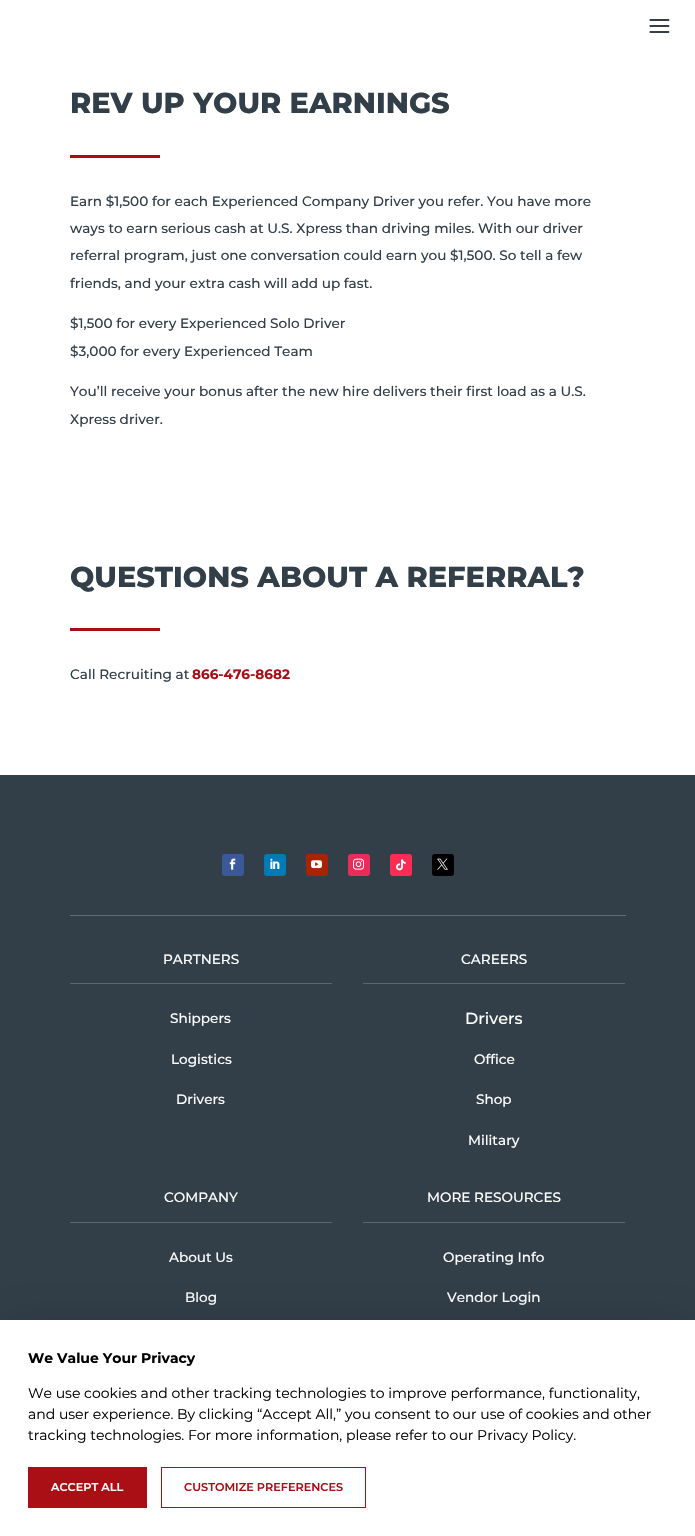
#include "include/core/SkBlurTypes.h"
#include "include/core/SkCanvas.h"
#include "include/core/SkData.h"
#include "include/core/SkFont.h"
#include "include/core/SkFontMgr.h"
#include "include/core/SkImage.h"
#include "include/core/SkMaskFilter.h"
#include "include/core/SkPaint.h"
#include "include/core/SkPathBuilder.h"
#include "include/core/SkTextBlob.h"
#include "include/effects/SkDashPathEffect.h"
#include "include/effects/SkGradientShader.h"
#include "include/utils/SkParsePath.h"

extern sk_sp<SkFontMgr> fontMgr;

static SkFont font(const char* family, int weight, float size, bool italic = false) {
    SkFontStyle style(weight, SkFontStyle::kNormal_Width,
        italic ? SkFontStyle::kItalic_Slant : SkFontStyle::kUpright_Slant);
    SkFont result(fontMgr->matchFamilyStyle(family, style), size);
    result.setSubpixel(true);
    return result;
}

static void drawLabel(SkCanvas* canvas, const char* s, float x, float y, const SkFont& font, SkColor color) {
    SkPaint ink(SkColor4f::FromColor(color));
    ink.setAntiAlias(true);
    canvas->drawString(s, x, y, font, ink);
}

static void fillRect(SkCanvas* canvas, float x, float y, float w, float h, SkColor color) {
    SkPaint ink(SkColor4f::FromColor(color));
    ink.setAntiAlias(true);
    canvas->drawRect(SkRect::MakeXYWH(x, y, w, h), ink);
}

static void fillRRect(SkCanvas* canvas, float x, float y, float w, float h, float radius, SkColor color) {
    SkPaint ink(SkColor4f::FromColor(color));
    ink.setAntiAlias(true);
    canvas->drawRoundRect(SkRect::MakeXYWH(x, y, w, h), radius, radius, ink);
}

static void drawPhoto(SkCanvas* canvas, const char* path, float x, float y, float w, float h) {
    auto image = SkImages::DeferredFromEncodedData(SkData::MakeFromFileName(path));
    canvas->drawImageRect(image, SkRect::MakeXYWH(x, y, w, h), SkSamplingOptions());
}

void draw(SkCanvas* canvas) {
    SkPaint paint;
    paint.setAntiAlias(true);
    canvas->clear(0xFFFFFFFF);
    drawPhoto(canvas, "assets/img1.png", 649, 19, 21, 14);
    SkFont font1 = font("Montserrat", 800, 28.75f);
    drawLabel(canvas, "REV UP YOUR EARNINGS", 70, 113, font1, 0xFF323E48);
    fillRect(canvas, 70, 155, 90, 3, 0xFFA80E13);
    SkFont font2 = font("Montserrat", 500, 13.6f);
    drawLabel(canvas, "Earn $1,500 for each Experienced Company Driver you refer. You have more", 70, 206, font2, 0xFF323E48);
    drawLabel(canvas, "ways to earn serious cash at U.S. Xpress than driving miles. With our driver", 70, 233, font2, 0xFF323E48);
    drawLabel(canvas, "referral program, just one conversation could earn you $1,500. So tell a few", 70, 260, font2, 0xFF323E48);
    drawLabel(canvas, "friends, and your extra cash will add up fast.", 70, 288, font2, 0xFF323E48);
    drawLabel(canvas, "$1,500 for every Experienced Solo Driver", 70, 328, font2, 0xFF323E48);
    drawLabel(canvas, "$3,000 for every Experienced Team", 70, 356, font2, 0xFF323E48);
    drawLabel(canvas, "You’ll receive your bonus after the new hire delivers their first load as a U.S.", 70, 396, font2, 0xFF323E48);
    drawLabel(canvas, "Xpress driver.", 70, 424, font2, 0xFF323E48);
    drawLabel(canvas, "QUESTIONS ABOUT A REFERRAL?", 70, 587, font1, 0xFF323E48);
    fillRect(canvas, 70, 628, 90, 3, 0xFFA80E13);
    drawLabel(canvas, "Call Recruiting at", 70, 679, font2, 0xFF323E48);
    SkFont font3 = font("Montserrat", 700, 13.6f);
    drawLabel(canvas, "866-476-8682", 192, 679, font3, 0xFFA80E13);
    fillRect(canvas, 0, 775, 695, 545, 0xFF323E48);
    fillRect(canvas, 70, 915, 556, 1, 0xFF636C74);
    fillRRect(canvas, 222, 854, 22, 22, 3, 0xFF3B5998);
    drawPhoto(canvas, "assets/img2.png", 229, 858, 7, 12);
    fillRRect(canvas, 264, 854, 22, 22, 3, 0xFF007BB6);
    drawPhoto(canvas, "assets/img3.png", 270, 858, 10, 11);
    fillRRect(canvas, 306, 854, 22, 22, 3, 0xFFA82400);
    drawPhoto(canvas, "assets/img4.png", 311, 860, 11, 9);
    fillRRect(canvas, 348, 854, 22, 22, 3, 0xFFEA2C59);
    drawPhoto(canvas, "assets/img5.png", 353, 858, 11, 12);
    fillRRect(canvas, 390, 854, 22, 22, 3, 0xFFFE2C55);
    drawPhoto(canvas, "assets/img6.png", 396, 859, 10, 12);
    fillRRect(canvas, 432, 854, 22, 22, 3, 0xFF000000);
    drawPhoto(canvas, "assets/img7.png", 437, 858, 11, 12);
    fillRect(canvas, 70, 983, 262, 1, 0xFF5B656D);
    drawLabel(canvas, "PARTNERS", 163, 964, font2, 0xFFFFFFFF);
    drawLabel(canvas, "Shippers", 170, 1023, font2, 0xFFFFFFFF);
    drawLabel(canvas, "Logistics", 171, 1064, font2, 0xFFFFFFFF);
    drawLabel(canvas, "Drivers", 176, 1104, font2, 0xFFFFFFFF);
    fillRect(canvas, 363, 983, 262, 1, 0xFF5B656D);
    drawLabel(canvas, "CAREERS", 461, 964, font2, 0xFFFFFFFF);
    SkFont font4 = font("Montserrat", 500, 16);
    drawLabel(canvas, "Drivers", 465, 1024, font4, 0xFFFFFFFF);
    drawLabel(canvas, "Office", 474, 1064, font2, 0xFFFFFFFF);
    drawLabel(canvas, "Shop", 476, 1104, font2, 0xFFFFFFFF);
    drawLabel(canvas, "Military", 468, 1145, font2, 0xFFFFFFFF);
    fillRect(canvas, 70, 1222, 262, 1, 0xFF5B656D);
    drawLabel(canvas, "COMPANY", 164, 1202, font2, 0xFFFFFFFF);
    drawLabel(canvas, "About Us", 169, 1262, font2, 0xFFFFFFFF);
    drawLabel(canvas, "Blog", 185, 1302, font2, 0xFFFFFFFF);
    fillRect(canvas, 363, 1222, 262, 1, 0xFF5B656D);
    drawLabel(canvas, "MORE RESOURCES", 427, 1202, font2, 0xFFFFFFFF);
    drawLabel(canvas, "Operating Info", 443, 1262, font2, 0xFFFFFFFF);
    drawLabel(canvas, "Vendor Login", 447, 1302, font2, 0xFFFFFFFF);
    paint.setColor(0x1A000000);
    paint.setMaskFilter(SkMaskFilter::MakeBlur(kNormal_SkBlurStyle, 21));
    canvas->drawRect(SkRect::MakeXYWH(0, 1320, 695, 216), paint);
    paint.setMaskFilter(nullptr);
    fillRect(canvas, 0, 1320, 695, 216, 0xFFFFFFFF);
    SkFont font5 = font("Montserrat", 700, 14);
    drawLabel(canvas, "We Value Your Privacy", 28, 1363, font5, 0xFF000000);
    SkFont font6 = font("Montserrat", 400, 14);
    drawLabel(canvas, "We use cookies and other tracking technologies to improve performance, functionality,", 28, 1398, font6, 0xFF000000);
    drawLabel(canvas, "and user experience. By clicking “Accept All,” you consent to our use of cookies and other", 28, 1419, font6, 0xFF000000);
    drawLabel(canvas, "tracking technologies. For more information, please refer to our Privacy Policy.", 28, 1440, font6, 0xFF000000);
    fillRect(canvas, 28, 1467, 119, 41, 0xFFA90F14);
    SkFont font7 = font("Montserrat", 600, 11.25f);
    drawLabel(canvas, "ACCEPT ALL", 51, 1491, font7, 0xFFFFFFFF);
    paint.setStroke(true);
    paint.setStrokeWidth(1);
    paint.setColor(0xFFA90F14);
    canvas->drawRect(SkRect::MakeXYWH(161.5f, 1467.5f, 204, 40), paint);
    drawLabel(canvas, "CUSTOMIZE PREFERENCES", 184, 1491, font7, 0xFFA80E13);
}
